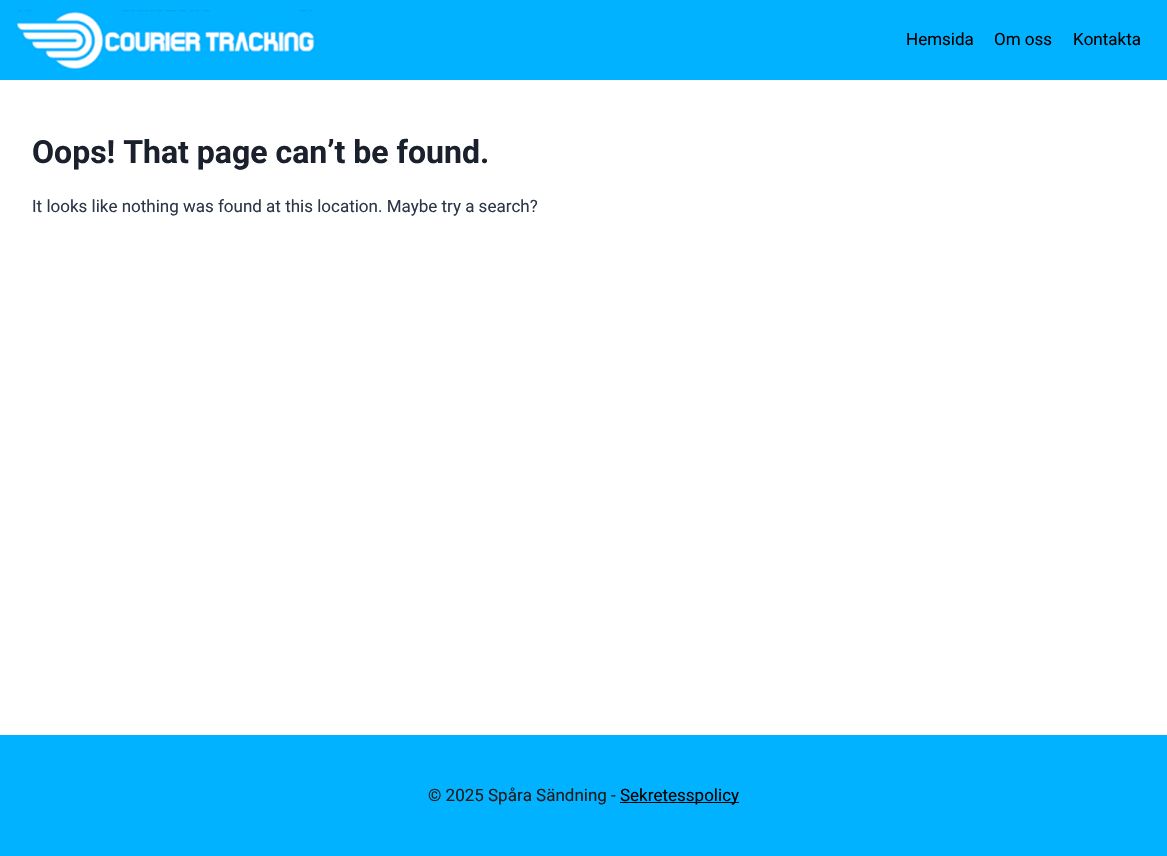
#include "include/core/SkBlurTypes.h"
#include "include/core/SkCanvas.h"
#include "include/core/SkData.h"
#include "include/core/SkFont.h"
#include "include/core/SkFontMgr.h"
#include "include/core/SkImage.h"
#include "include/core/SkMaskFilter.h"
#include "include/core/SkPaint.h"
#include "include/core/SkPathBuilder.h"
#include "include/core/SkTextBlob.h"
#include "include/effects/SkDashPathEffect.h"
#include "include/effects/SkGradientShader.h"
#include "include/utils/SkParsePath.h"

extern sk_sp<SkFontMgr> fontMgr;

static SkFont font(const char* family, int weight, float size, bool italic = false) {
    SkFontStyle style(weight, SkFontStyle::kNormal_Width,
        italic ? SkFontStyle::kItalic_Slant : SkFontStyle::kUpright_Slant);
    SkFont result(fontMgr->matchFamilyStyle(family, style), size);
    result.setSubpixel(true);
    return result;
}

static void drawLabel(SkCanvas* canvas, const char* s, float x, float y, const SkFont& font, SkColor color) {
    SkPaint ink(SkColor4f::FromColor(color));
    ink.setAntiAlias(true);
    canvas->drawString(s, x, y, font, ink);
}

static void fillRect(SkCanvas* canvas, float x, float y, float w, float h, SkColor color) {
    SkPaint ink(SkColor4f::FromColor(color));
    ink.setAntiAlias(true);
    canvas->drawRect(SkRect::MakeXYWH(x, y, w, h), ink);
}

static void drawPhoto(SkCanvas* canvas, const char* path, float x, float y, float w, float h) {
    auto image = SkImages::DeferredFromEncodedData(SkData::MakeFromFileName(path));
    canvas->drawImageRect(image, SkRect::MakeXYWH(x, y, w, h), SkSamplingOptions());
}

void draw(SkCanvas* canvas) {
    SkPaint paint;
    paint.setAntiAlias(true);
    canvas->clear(0xFFFFFFFF);
    fillRect(canvas, 0, 0, 1167, 80, 0xFF00B2FF);
    drawPhoto(canvas, "assets/img1.png", 16, 10, 300, 60);
    SkFont font1 = font("Roboto", 400, 17);
    drawLabel(canvas, "Hemsida", 906, 45, font1, 0xFF000000);
    drawLabel(canvas, "Om oss", 994, 45, font1, 0xFF000000);
    drawLabel(canvas, "Kontakta", 1073, 45, font1, 0xFF000000);
    SkFont font2 = font("Roboto", 700, 32);
    drawLabel(canvas, "Oops! That page can’t be found.", 32, 163, font2, 0xFF1A202C);
    drawLabel(canvas, "It looks like nothing was found at this location. Maybe try a search?", 32, 212, font1, 0xFF2D3748);
    fillRect(canvas, 0, 735, 1167, 121, 0xFF00B2FF);
    drawLabel(canvas, "© 2025 Spåra Sändning -", 428, 801, font1, 0xFF1C1C1C);
    fillRect(canvas, 620, 802, 119, 1, 0xFF000000);
    drawLabel(canvas, "Sekretesspolicy", 620, 801, font1, 0xFF000000);
}
